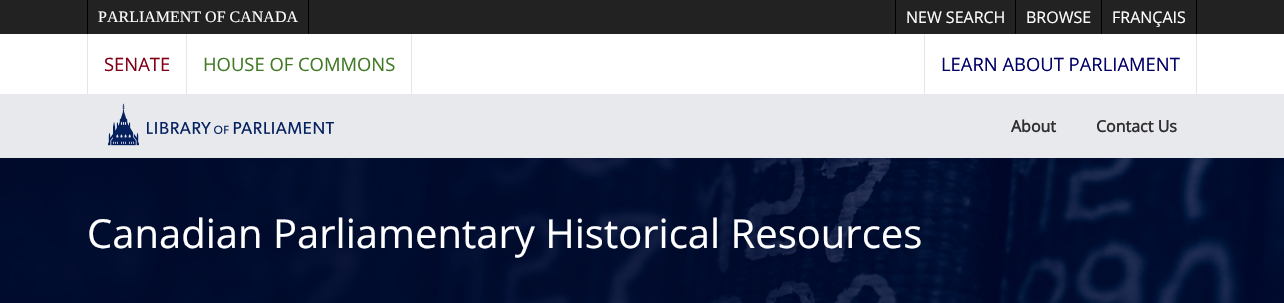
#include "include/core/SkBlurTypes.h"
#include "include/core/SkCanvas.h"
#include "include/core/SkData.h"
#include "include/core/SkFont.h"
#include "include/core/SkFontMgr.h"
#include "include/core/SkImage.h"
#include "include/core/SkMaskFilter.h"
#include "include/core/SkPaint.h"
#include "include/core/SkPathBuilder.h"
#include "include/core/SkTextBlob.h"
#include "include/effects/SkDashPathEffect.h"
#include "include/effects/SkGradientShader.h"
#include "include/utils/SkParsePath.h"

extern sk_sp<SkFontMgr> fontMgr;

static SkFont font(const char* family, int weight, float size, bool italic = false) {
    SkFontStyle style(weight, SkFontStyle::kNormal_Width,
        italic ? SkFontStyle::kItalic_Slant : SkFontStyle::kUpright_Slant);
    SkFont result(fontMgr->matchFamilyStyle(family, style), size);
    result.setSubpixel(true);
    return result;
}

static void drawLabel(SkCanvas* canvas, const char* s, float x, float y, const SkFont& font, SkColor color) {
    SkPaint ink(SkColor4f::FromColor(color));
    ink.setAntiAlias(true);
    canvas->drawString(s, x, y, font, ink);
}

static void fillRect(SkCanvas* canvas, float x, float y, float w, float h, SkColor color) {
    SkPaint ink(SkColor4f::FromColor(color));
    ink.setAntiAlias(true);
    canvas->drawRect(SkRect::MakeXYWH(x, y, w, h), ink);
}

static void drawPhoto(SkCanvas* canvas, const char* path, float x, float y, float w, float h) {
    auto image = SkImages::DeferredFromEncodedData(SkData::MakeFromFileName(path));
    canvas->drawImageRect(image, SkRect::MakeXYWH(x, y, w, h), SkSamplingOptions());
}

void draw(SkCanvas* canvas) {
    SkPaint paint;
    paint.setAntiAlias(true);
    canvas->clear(0xFF222222);
    fillRect(canvas, 308, 0, 1, 34, 0xFF000000);
    fillRect(canvas, 87, 0, 1, 34, 0xFF000000);
    SkFont font1 = font("Liberation Serif", 400, 16);
    drawLabel(canvas, "PARLIAMENT OF CANADA", 98, 22, font1, 0xFFFFFFFF);
    fillRect(canvas, 1015, 0, 1, 34, 0xFF000000);
    fillRect(canvas, 895, 0, 1, 34, 0xFF000000);
    SkFont font2 = font("Open Sans", 400, 16);
    drawLabel(canvas, "NEW SEARCH", 906, 23, font2, 0xFFFFFFFF);
    fillRect(canvas, 1101, 0, 1, 34, 0xFF000000);
    drawLabel(canvas, "BROWSE", 1026, 23, font2, 0xFFFFFFFF);
    fillRect(canvas, 1196, 0, 1, 34, 0xFF000000);
    drawLabel(canvas, "FRANÇAIS", 1112, 23, font2, 0xFFFFFFFF);
    fillRect(canvas, 0, 34, 1284, 60, 0xFFFFFFFF);
    fillRect(canvas, 186, 34, 1, 60, 0xFFE5E5E5);
    fillRect(canvas, 87, 34, 1, 60, 0xFFE5E5E5);
    SkFont font3 = font("Open Sans", 400, 18.4f);
    drawLabel(canvas, "SENATE", 104, 71, font3, 0xFF7F0116);
    fillRect(canvas, 411, 34, 1, 60, 0xFFE5E5E5);
    drawLabel(canvas, "HOUSE OF COMMONS", 203, 71, font3, 0xFF427A26);
    fillRect(canvas, 1196, 34, 1, 60, 0xFFE5E5E5);
    fillRect(canvas, 924, 34, 1, 60, 0xFFE5E5E5);
    drawLabel(canvas, "LEARN ABOUT PARLIAMENT", 941, 71, font3, 0xFF000066);
    fillRect(canvas, 0, 94, 1284, 64, 0xFFE7E9EC);
    drawPhoto(canvas, "assets/img1.png", 108, 103, 226, 43);
    SkFont font4 = font("Open Sans", 700, 16);
    drawLabel(canvas, "About", 1011, 132, font4, 0xFF322F31);
    drawLabel(canvas, "Contact Us", 1096, 132, font4, 0xFF322F31);
    drawPhoto(canvas, "assets/img2.png", 0, 158, 1284, 145);
    SkFont font5 = font("Open Sans", 400, 40);
    drawLabel(canvas, "Canadian Parliamentary Historical Resources", 87, 248, font5, 0xFFFFFFFF);
}
